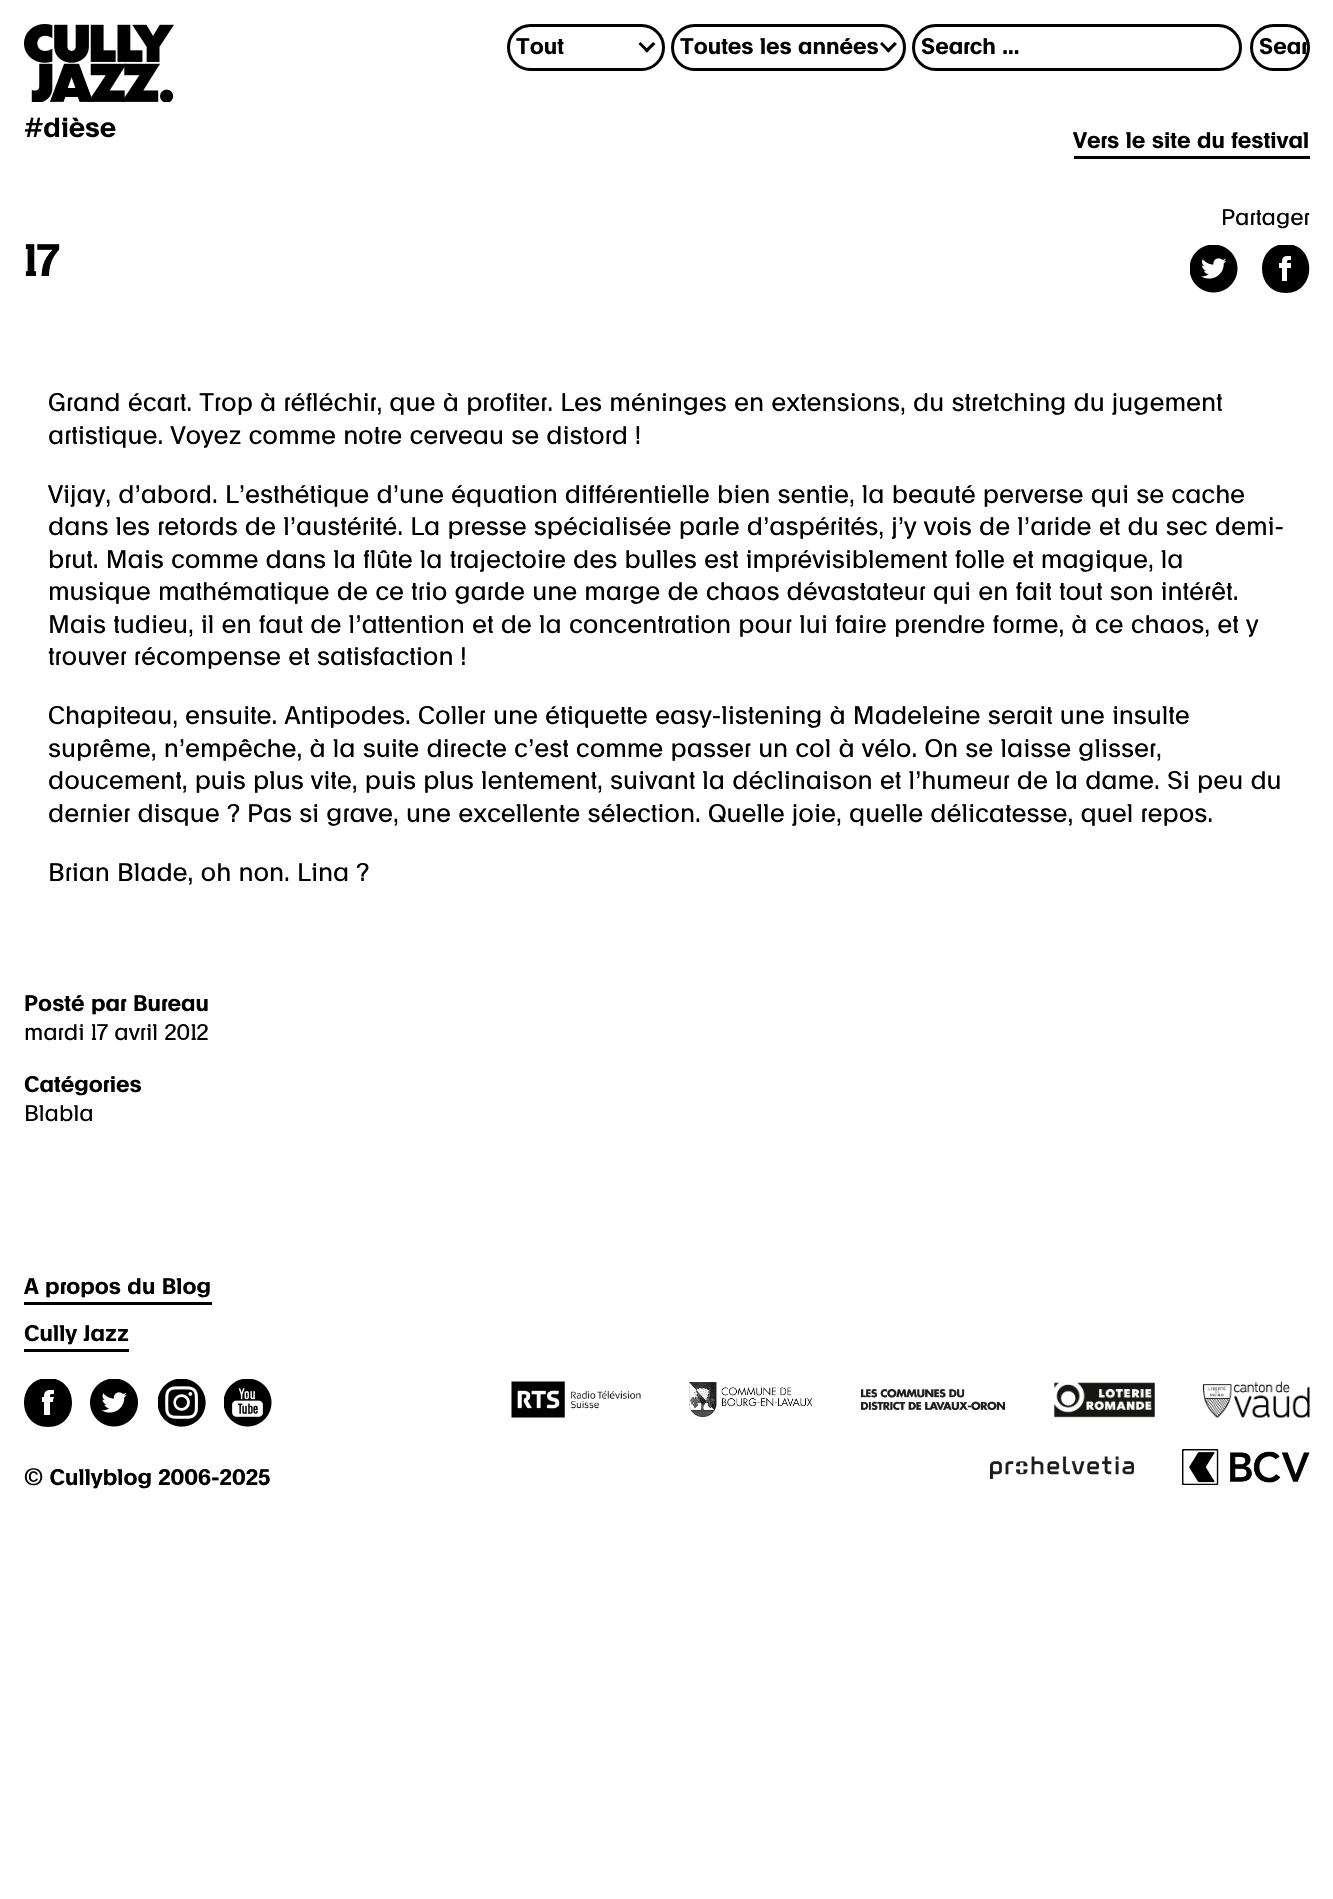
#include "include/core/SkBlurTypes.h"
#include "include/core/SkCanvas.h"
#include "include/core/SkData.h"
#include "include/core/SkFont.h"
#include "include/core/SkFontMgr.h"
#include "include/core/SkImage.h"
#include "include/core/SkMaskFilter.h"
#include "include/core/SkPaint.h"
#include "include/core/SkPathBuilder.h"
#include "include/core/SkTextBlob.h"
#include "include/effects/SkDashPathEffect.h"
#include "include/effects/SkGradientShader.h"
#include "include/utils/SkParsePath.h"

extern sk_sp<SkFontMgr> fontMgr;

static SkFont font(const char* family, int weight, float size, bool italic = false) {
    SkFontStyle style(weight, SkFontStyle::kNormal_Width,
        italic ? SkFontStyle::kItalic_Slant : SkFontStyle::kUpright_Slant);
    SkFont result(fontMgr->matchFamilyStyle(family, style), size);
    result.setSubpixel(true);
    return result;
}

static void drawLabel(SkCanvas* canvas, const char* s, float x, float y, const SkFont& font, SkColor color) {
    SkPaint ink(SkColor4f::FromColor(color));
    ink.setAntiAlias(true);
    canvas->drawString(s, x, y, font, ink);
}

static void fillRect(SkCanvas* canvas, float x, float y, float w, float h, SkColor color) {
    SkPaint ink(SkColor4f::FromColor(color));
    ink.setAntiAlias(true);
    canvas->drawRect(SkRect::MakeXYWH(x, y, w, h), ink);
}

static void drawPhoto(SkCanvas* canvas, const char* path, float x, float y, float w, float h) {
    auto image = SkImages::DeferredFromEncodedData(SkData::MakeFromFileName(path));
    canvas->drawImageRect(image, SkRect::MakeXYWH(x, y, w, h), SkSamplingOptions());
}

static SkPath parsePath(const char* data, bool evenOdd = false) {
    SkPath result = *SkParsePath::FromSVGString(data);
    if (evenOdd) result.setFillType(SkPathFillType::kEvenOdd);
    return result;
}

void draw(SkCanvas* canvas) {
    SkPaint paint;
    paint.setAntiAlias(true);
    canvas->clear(0xFFFFFFFF);
    paint.setStroke(true);
    paint.setStrokeWidth(3);
    paint.setColor(0xFF000000);
    canvas->drawRoundRect(SkRect::MakeXYWH(508.5f, 25.5f, 155, 44), 22, 22, paint);
    SkFont font1 = font("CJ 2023", 600, 24);
    drawLabel(canvas, "Tout", 516, 54, font1, 0xFF000000);
    paint.setStroke(false);
    canvas->drawPath(parsePath("M644.5 50.5L653 42L655.5 44L647 52.5Z"), paint);
    canvas->drawPath(parsePath("M638.5 44L640.5 42L649 50.5L647 52.5Z"), paint);
    paint.setStroke(true);
    canvas->drawRoundRect(SkRect::MakeXYWH(672.5f, 25.5f, 232, 44), 22, 22, paint);
    drawLabel(canvas, "Toutes les années", 680, 54, font1, 0xFF000000);
    paint.setStroke(false);
    canvas->drawPath(parsePath("M886 50.5L894.5 42L897 44L888.5 52.5Z"), paint);
    canvas->drawPath(parsePath("M880 44L882 42L890.5 50.5L888.5 52.5Z"), paint);
    paint.setStroke(true);
    canvas->drawRoundRect(SkRect::MakeXYWH(913.5f, 25.5f, 327, 44), 22, 22, paint);
    drawLabel(canvas, "Search …", 921, 54, font1, 0xFF000000);
    canvas->drawRoundRect(SkRect::MakeXYWH(1251.5f, 25.5f, 57, 44), 22, 22, paint);
    canvas->save();
    canvas->clipPath(parsePath("M1273.5 27H1286.5C1298 27 1307 36 1307 47.5C1307 59 1298 68 1286.5 68H1273.5C1262 68 1253 59 1253 47.5C1253 36 1262 27 1273.5 27Z"), true);
    drawLabel(canvas, "Sear", 1259, 54, font1, 0xFF000000);
    canvas->restore();
    drawPhoto(canvas, "assets/img1.png", 24, 24, 150, 78);
    SkFont font2 = font("CJ 2023", 600, 29);
    drawLabel(canvas, "#dièse", 24, 137, font2, 0xFF000000);
    drawLabel(canvas, "Vers le site du festival", 1073, 148, font1, 0xFF000000);
    fillRect(canvas, 1074, 156, 236, 3, 0xFF000000);
    SkFont font3 = font("CJ 2023", 400, 24);
    drawLabel(canvas, "Partager", 1221, 225, font3, 0xFF000000);
    drawPhoto(canvas, "assets/img2.png", 1190, 245, 48, 48);
    canvas->save();
    canvas->clipRect(SkRect::MakeXYWH(1262, 245, 48, 48));
    paint.setStroke(false);
    canvas->drawPath(parsePath("M1286 244C1254 244 1254 293 1286 293C1317 293 1317 244 1286 244ZM1291 266V268H1287V281H1282V268H1279V263H1282C1282 256 1284 256 1291 256V260C1287 260 1287 260 1287 263H1291Z"), paint);
    canvas->restore();
    SkFont font4 = font("CJ 2023", 600, 48);
    drawLabel(canvas, "17", 24, 276, font4, 0xFF000000);
    SkFont font5 = font("CJ 2023", 400, 27);
    drawLabel(canvas, "Grand écart. Trop à réfléchir, que à profiter. Les méninges en extensions, du stretching du jugement", 48, 411, font5, 0xFF000000);
    drawLabel(canvas, "artistique. Voyez comme notre cerveau se distord !", 48, 444, font5, 0xFF000000);
    drawLabel(canvas, "Vijay, d’abord. L’esthétique d’une équation différentielle bien sentie, la beauté perverse qui se cache", 48, 503, font5, 0xFF000000);
    drawLabel(canvas, "dans les retords de l’austérité. La presse spécialisée parle d’aspérités, j’y vois de l’aride et du sec demi-", 48, 535, font5, 0xFF000000);
    drawLabel(canvas, "brut. Mais comme dans la flûte la trajectoire des bulles est imprévisiblement folle et magique, la", 48, 568, font5, 0xFF000000);
    drawLabel(canvas, "musique mathématique de ce trio garde une marge de chaos dévastateur qui en fait tout son intérêt.", 48, 600, font5, 0xFF000000);
    drawLabel(canvas, "Mais tudieu, il en faut de l’attention et de la concentration pour lui faire prendre forme, à ce chaos, et y", 48, 633, font5, 0xFF000000);
    drawLabel(canvas, "trouver récompense et satisfaction !", 48, 665, font5, 0xFF000000);
    drawLabel(canvas, "Chapiteau, ensuite. Antipodes. Coller une étiquette easy-listening à Madeleine serait une insulte", 48, 724, font5, 0xFF000000);
    drawLabel(canvas, "suprême, n’empêche, à la suite directe c’est comme passer un col à vélo. On se laisse glisser,", 48, 757, font5, 0xFF000000);
    drawLabel(canvas, "doucement, puis plus vite, puis plus lentement, suivant la déclinaison et l’humeur de la dame. Si peu du", 48, 789, font5, 0xFF000000);
    drawLabel(canvas, "dernier disque ? Pas si grave, une excellente sélection. Quelle joie, quelle délicatesse, quel repos.", 48, 822, font5, 0xFF000000);
    drawLabel(canvas, "Brian Blade, oh non. Lina ?", 48, 881, font5, 0xFF000000);
    drawLabel(canvas, "Posté par Bureau", 24, 1011, font1, 0xFF000000);
    drawLabel(canvas, "mardi 17 avril 2012", 24, 1040, font3, 0xFF000000);
    drawLabel(canvas, "Catégories", 24, 1092, font1, 0xFF000000);
    drawLabel(canvas, "Blabla", 24, 1121, font3, 0xFF000000);
    drawLabel(canvas, "A propos du Blog", 24, 1294, font1, 0xFF000000);
    fillRect(canvas, 24, 1302, 188, 3, 0xFF000000);
    drawLabel(canvas, "Cully Jazz", 24, 1341, font1, 0xFF000000);
    fillRect(canvas, 24, 1349, 105, 3, 0xFF000000);
    canvas->save();
    canvas->clipRect(SkRect::MakeXYWH(24, 1379, 48, 48));
    canvas->drawPath(parsePath("M48 1378C16 1378 16 1427 48 1427C80 1427 80 1378 48 1378ZM53 1400V1402H50V1415H44V1402H42V1397H44C44 1390 47 1390 54 1390V1394C50 1394 50 1394 50 1397H54Z"), paint);
    canvas->restore();
    drawPhoto(canvas, "assets/img3.png", 90, 1379, 48, 48);
    drawPhoto(canvas, "assets/img4.png", 158, 1379, 48, 48);
    drawPhoto(canvas, "assets/img5.png", 224, 1379, 48, 48);
    drawLabel(canvas, "© Cullyblog 2006-2025", 24, 1485, font1, 0xFF000000);
    drawPhoto(canvas, "assets/img6.png", 511, 1381, 130, 37);
    drawPhoto(canvas, "assets/img7.png", 689, 1382, 124, 36);
    drawPhoto(canvas, "assets/img8.png", 861, 1389, 144, 21);
    drawPhoto(canvas, "assets/img9.png", 1053, 1382, 102, 36);
    drawPhoto(canvas, "assets/img10.png", 1203, 1381, 107, 37);
    drawPhoto(canvas, "assets/img11.png", 990, 1456, 144, 23);
    drawPhoto(canvas, "assets/img12.png", 1182, 1449, 128, 36);
}
